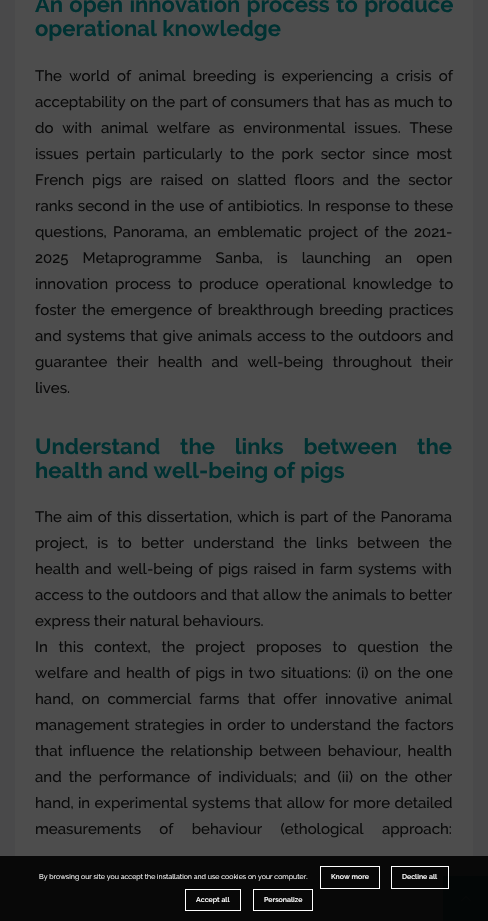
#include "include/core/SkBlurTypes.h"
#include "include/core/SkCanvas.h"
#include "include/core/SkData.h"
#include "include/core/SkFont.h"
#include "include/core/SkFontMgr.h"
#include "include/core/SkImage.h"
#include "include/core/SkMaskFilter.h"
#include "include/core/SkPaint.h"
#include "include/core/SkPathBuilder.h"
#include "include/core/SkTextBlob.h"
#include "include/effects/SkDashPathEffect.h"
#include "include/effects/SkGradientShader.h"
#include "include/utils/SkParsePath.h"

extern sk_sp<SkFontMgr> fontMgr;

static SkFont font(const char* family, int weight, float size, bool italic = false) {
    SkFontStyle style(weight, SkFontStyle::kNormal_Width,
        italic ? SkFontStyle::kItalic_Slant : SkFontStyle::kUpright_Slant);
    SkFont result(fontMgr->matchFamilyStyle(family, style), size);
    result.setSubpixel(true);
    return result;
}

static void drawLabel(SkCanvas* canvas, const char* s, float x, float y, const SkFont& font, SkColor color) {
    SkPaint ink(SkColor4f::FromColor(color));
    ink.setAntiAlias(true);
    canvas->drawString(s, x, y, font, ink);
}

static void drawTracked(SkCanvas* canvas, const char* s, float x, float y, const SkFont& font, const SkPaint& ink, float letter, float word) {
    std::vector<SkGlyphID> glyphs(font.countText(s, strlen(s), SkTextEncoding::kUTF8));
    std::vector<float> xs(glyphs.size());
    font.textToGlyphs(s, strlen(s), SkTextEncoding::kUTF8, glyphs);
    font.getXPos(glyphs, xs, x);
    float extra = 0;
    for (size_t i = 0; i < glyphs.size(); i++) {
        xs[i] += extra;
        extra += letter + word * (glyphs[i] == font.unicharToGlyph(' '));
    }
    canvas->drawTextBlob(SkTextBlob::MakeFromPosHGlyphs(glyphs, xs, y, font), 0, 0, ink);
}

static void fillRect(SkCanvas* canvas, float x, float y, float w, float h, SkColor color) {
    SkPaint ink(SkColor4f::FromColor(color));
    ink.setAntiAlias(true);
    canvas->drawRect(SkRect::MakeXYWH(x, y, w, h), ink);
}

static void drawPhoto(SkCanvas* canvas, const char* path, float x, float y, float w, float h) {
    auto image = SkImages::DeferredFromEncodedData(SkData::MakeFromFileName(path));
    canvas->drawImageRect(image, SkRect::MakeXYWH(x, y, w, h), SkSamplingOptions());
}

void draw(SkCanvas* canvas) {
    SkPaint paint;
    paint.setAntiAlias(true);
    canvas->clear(0xFF49494A);
    fillRect(canvas, 15, 0, 458, 921, 0xFF4D4D4D);
    SkFont font1 = font("Raleway", 700, 22);
    paint.setColor(0xFF003132);
    drawTracked(canvas, "An open innovation process to produce", 35, 12, font1, paint, 0, 1);
    drawLabel(canvas, "operational knowledge", 35, 36, font1, 0xFF003132);
    SkFont font2 = font("Raleway", 500, 15);
    paint.setColor(0xFF0A0A0A);
    drawTracked(canvas, "The world of animal breeding is experiencing a crisis of", 35, 81, font2, paint, 0, 3.5f);
    drawTracked(canvas, "acceptability on the part of consumers that has as much to", 35, 107, font2, paint, 0, 0.5f);
    drawTracked(canvas, "do with animal welfare as environmental issues. These", 35, 133, font2, paint, 0, 5);
    drawTracked(canvas, "issues pertain particularly to the pork sector since most", 35, 159, font2, paint, 0, 3.5f);
    drawTracked(canvas, "French pigs are raised on slatted floors and the sector", 35, 185, font2, paint, 0, 4.25f);
    drawTracked(canvas, "ranks second in the use of antibiotics. In response to these", 35, 211, font2, paint, 0, 0.9f);
    drawTracked(canvas, "questions, Panorama, an emblematic project of the 2021-", 35, 237, font2, paint, 0, 2.5f);
    drawTracked(canvas, "2025 Metaprogramme Sanba, is launching an open", 35, 263, font2, paint, 0, 10.25f);
    drawTracked(canvas, "innovation process to produce operational knowledge to", 35, 289, font2, paint, 0, 3.25f);
    drawTracked(canvas, "foster the emergence of breakthrough breeding practices", 35, 315, font2, paint, 0, 2);
    drawTracked(canvas, "and systems that give animals access to the outdoors and", 35, 341, font2, paint, 0, 1.25f);
    drawTracked(canvas, "guarantee their health and well-being throughout their", 35, 367, font2, paint, 0, 5.5f);
    drawLabel(canvas, "lives.", 35, 393, font2, 0xFF0A0A0A);
    paint.setColor(0xFF003132);
    drawTracked(canvas, "Understand the links between the", 35, 454, font1, paint, 0, 14.5f);
    drawLabel(canvas, "health and well-being of pigs", 35, 478, font1, 0xFF003132);
    paint.setColor(0xFF0A0A0A);
    drawTracked(canvas, "The aim of this dissertation, which is part of the Panorama", 35, 522, font2, paint, 0, 1.25f);
    drawTracked(canvas, "project, is to better understand the links between the", 35, 548, font2, paint, 0, 5.5f);
    drawTracked(canvas, "health and well-being of pigs raised in farm systems with", 35, 574, font2, paint, 0, 1.75f);
    drawTracked(canvas, "access to the outdoors and that allow the animals to better", 35, 600, font2, paint, 0, 0.25f);
    drawLabel(canvas, "express their natural behaviours.", 35, 626, font2, 0xFF0A0A0A);
    drawTracked(canvas, "In this context, the project proposes to question the", 35, 652, font2, paint, 0, 7);
    drawTracked(canvas, "welfare and health of pigs in two situations: (i) on the one", 35, 678, font2, paint, 0, 1.75f);
    drawTracked(canvas, "hand, on commercial farms that offer innovative animal", 35, 704, font2, paint, 0, 4.25f);
    drawTracked(canvas, "management strategies in order to understand the factors", 35, 730, font2, paint, 0, 1.5f);
    drawTracked(canvas, "that influence the relationship between behaviour, health", 35, 756, font2, paint, 0, 2.5f);
    drawTracked(canvas, "and the performance of individuals; and (ii) on the other", 35, 782, font2, paint, 0, 3.25f);
    drawTracked(canvas, "hand, in experimental systems that allow for more detailed", 35, 808, font2, paint, 0, 0.5f);
    drawTracked(canvas, "measurements of behaviour (ethological approach:", 35, 834, font2, paint, 0, 14.5f);
    fillRect(canvas, 443, 876, 45, 45, 0xB3013230);
    drawPhoto(canvas, "assets/img1.png", 461, 896, 10, 6);
    fillRect(canvas, 0, 856, 488, 65, 0xE6000000);
    SkFont font3 = font("Raleway", 400, 7);
    drawLabel(canvas, "By browsing our site you accept the installation and use cookies on your computer.", 39, 879, font3, 0xFFFFFFFF);
    paint.setStroke(true);
    paint.setStrokeWidth(1);
    paint.setColor(0xFFFFFFFF);
    canvas->drawRect(SkRect::MakeXYWH(320.5f, 866.5f, 59, 22), paint);
    SkFont font4 = font("Raleway", 600, 7);
    drawLabel(canvas, "Know more", 331, 879, font4, 0xFFFFFFFF);
    canvas->drawRect(SkRect::MakeXYWH(391.5f, 866.5f, 57, 22), paint);
    drawLabel(canvas, "Decline all", 402, 879, font4, 0xFFFFFFFF);
    canvas->drawRect(SkRect::MakeXYWH(185.5f, 889.5f, 55, 21), paint);
    drawLabel(canvas, "Accept all", 196, 902, font4, 0xFFFFFFFF);
    canvas->drawRect(SkRect::MakeXYWH(253.5f, 889.5f, 59, 21), paint);
    drawLabel(canvas, "Personalize", 264, 902, font4, 0xFFFFFFFF);
}
